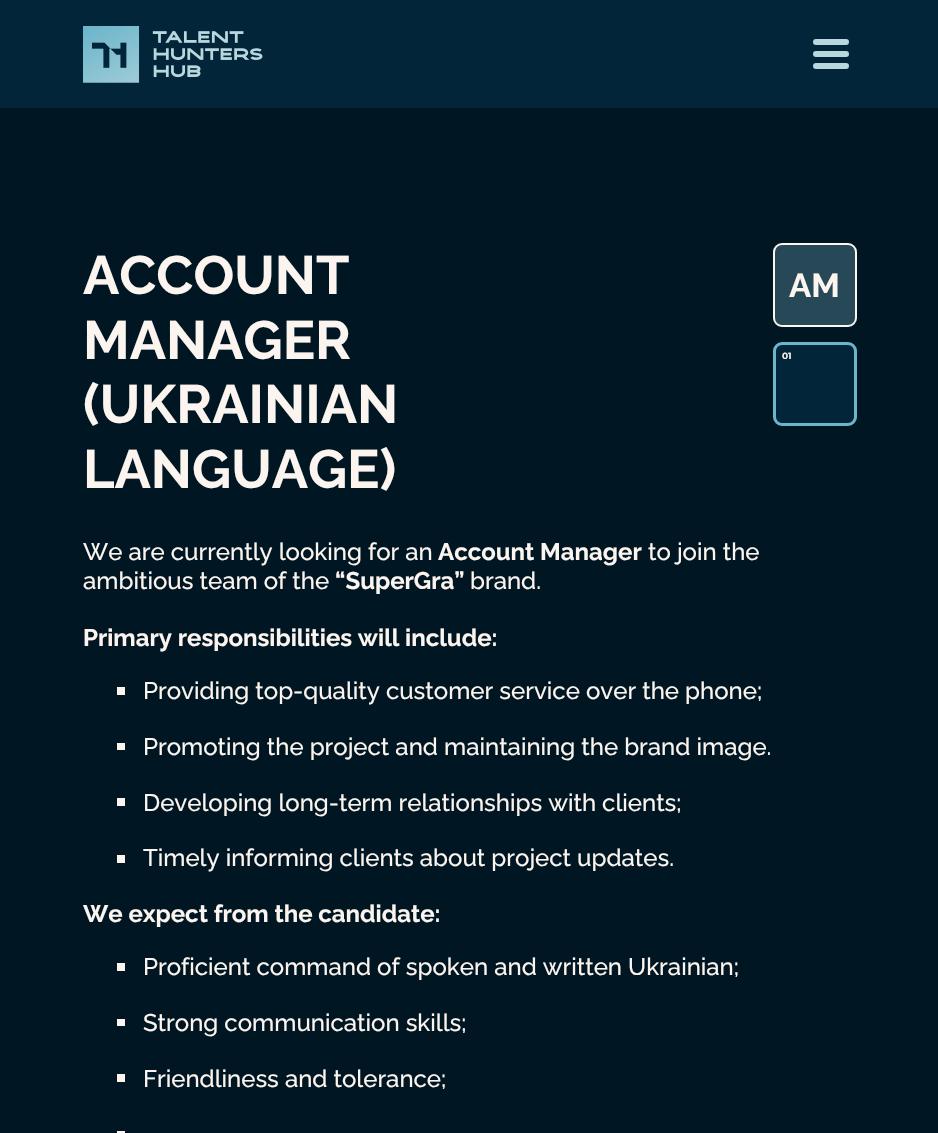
#include "include/core/SkBlurTypes.h"
#include "include/core/SkCanvas.h"
#include "include/core/SkData.h"
#include "include/core/SkFont.h"
#include "include/core/SkFontMgr.h"
#include "include/core/SkImage.h"
#include "include/core/SkMaskFilter.h"
#include "include/core/SkPaint.h"
#include "include/core/SkPathBuilder.h"
#include "include/core/SkTextBlob.h"
#include "include/effects/SkDashPathEffect.h"
#include "include/effects/SkGradientShader.h"
#include "include/utils/SkParsePath.h"

extern sk_sp<SkFontMgr> fontMgr;

static SkFont font(const char* family, int weight, float size, bool italic = false) {
    SkFontStyle style(weight, SkFontStyle::kNormal_Width,
        italic ? SkFontStyle::kItalic_Slant : SkFontStyle::kUpright_Slant);
    SkFont result(fontMgr->matchFamilyStyle(family, style), size);
    result.setSubpixel(true);
    return result;
}

static void drawLabel(SkCanvas* canvas, const char* s, float x, float y, const SkFont& font, SkColor color) {
    SkPaint ink(SkColor4f::FromColor(color));
    ink.setAntiAlias(true);
    canvas->drawString(s, x, y, font, ink);
}

static void fillRect(SkCanvas* canvas, float x, float y, float w, float h, SkColor color) {
    SkPaint ink(SkColor4f::FromColor(color));
    ink.setAntiAlias(true);
    canvas->drawRect(SkRect::MakeXYWH(x, y, w, h), ink);
}

static void fillRRect(SkCanvas* canvas, float x, float y, float w, float h, float radius, SkColor color) {
    SkPaint ink(SkColor4f::FromColor(color));
    ink.setAntiAlias(true);
    canvas->drawRoundRect(SkRect::MakeXYWH(x, y, w, h), radius, radius, ink);
}

static void drawPhoto(SkCanvas* canvas, const char* path, float x, float y, float w, float h) {
    auto image = SkImages::DeferredFromEncodedData(SkData::MakeFromFileName(path));
    canvas->drawImageRect(image, SkRect::MakeXYWH(x, y, w, h), SkSamplingOptions());
}

void draw(SkCanvas* canvas) {
    SkPaint paint;
    paint.setAntiAlias(true);
    canvas->clear(0xFF001623);
    fillRect(canvas, 0, 0, 938, 108, 0xFF022539);
    drawPhoto(canvas, "assets/img1.png", 83, 26, 180, 57);
    fillRRect(canvas, 813, 39, 36, 6, 3, 0xFFB8D8DE);
    fillRRect(canvas, 813, 51, 36, 6, 3, 0xFFB8D8DE);
    fillRRect(canvas, 813, 63, 36, 6, 3, 0xFFB8D8DE);
    SkFont font1 = font("Raleway", 700, 54);
    drawLabel(canvas, "ACCOUNT", 83, 294, font1, 0xFFFCF4EE);
    drawLabel(canvas, "MANAGER", 83, 359, font1, 0xFFFCF4EE);
    drawLabel(canvas, "(UKRAINIAN", 83, 423, font1, 0xFFFCF4EE);
    drawLabel(canvas, "LANGUAGE)", 83, 488, font1, 0xFFFCF4EE);
    paint.setColor(0xFF274957);
    canvas->drawRoundRect(SkRect::MakeXYWH(774, 244, 82, 82), 8, 8, paint);
    paint.setStroke(true);
    paint.setStrokeWidth(2);
    paint.setColor(0xFFFCF4EE);
    canvas->drawRoundRect(SkRect::MakeXYWH(774, 244, 82, 82), 8, 8, paint);
    SkFont font2 = font("Raleway", 700, 33);
    drawLabel(canvas, "AM", 789, 297, font2, 0xFFFCF4EE);
    paint.setStroke(false);
    paint.setColor(0xFF022539);
    canvas->drawRoundRect(SkRect::MakeXYWH(774.5f, 343.5f, 81, 81), 7.5f, 7.5f, paint);
    paint.setStroke(true);
    paint.setStrokeWidth(3);
    paint.setColor(0xFF6DB5CA);
    canvas->drawRoundRect(SkRect::MakeXYWH(774.5f, 343.5f, 81, 81), 7.5f, 7.5f, paint);
    SkFont font3 = font("Montserrat", 700, 9);
    drawLabel(canvas, "01", 782, 359, font3, 0xFFFCF4EE);
    SkFont font4 = font("Raleway", 500, 24);
    drawLabel(canvas, "We are currently looking for an", 83, 560, font4, 0xFFFCF4EE);
    SkFont font5 = font("Raleway", 700, 24);
    drawLabel(canvas, "Account Manager", 438, 560, font5, 0xFFFCF4EE);
    drawLabel(canvas, "to join the", 648, 560, font4, 0xFFFCF4EE);
    drawLabel(canvas, "ambitious team of the", 83, 589, font4, 0xFFFCF4EE);
    drawLabel(canvas, "“SuperGra”", 335, 589, font5, 0xFFFCF4EE);
    drawLabel(canvas, "brand.", 470, 589, font4, 0xFFFCF4EE);
    drawLabel(canvas, "Primary responsibilities will include:", 83, 646, font5, 0xFFFCF4EE);
    fillRect(canvas, 117, 687, 8, 8, 0xFFFCF4EE);
    drawLabel(canvas, "Providing top-quality customer service over the phone;", 143, 699, font4, 0xFFFCF4EE);
    fillRect(canvas, 117, 743, 8, 7, 0xFFFCF4EE);
    drawLabel(canvas, "Promoting the project and maintaining the brand image.", 143, 755, font4, 0xFFFCF4EE);
    fillRect(canvas, 117, 798, 8, 8, 0xFFFCF4EE);
    drawLabel(canvas, "Developing long-term relationships with clients;", 143, 811, font4, 0xFFFCF4EE);
    fillRect(canvas, 117, 855, 8, 8, 0xFFFCF4EE);
    drawLabel(canvas, "Timely informing clients about project updates.", 143, 866, font4, 0xFFFCF4EE);
    drawLabel(canvas, "We expect from the candidate:", 83, 922, font5, 0xFFFCF4EE);
    fillRect(canvas, 117, 963, 8, 8, 0xFFFCF4EE);
    drawLabel(canvas, "Proficient command of spoken and written Ukrainian;", 143, 975, font4, 0xFFFCF4EE);
    fillRect(canvas, 117, 1019, 8, 7, 0xFFFCF4EE);
    drawLabel(canvas, "Strong communication skills;", 143, 1031, font4, 0xFFFCF4EE);
    fillRect(canvas, 117, 1074, 8, 8, 0xFFFCF4EE);
    drawLabel(canvas, "Friendliness and tolerance;", 143, 1087, font4, 0xFFFCF4EE);
    fillRect(canvas, 117, 1131, 8, 2, 0xFFFCF4EE);
}
